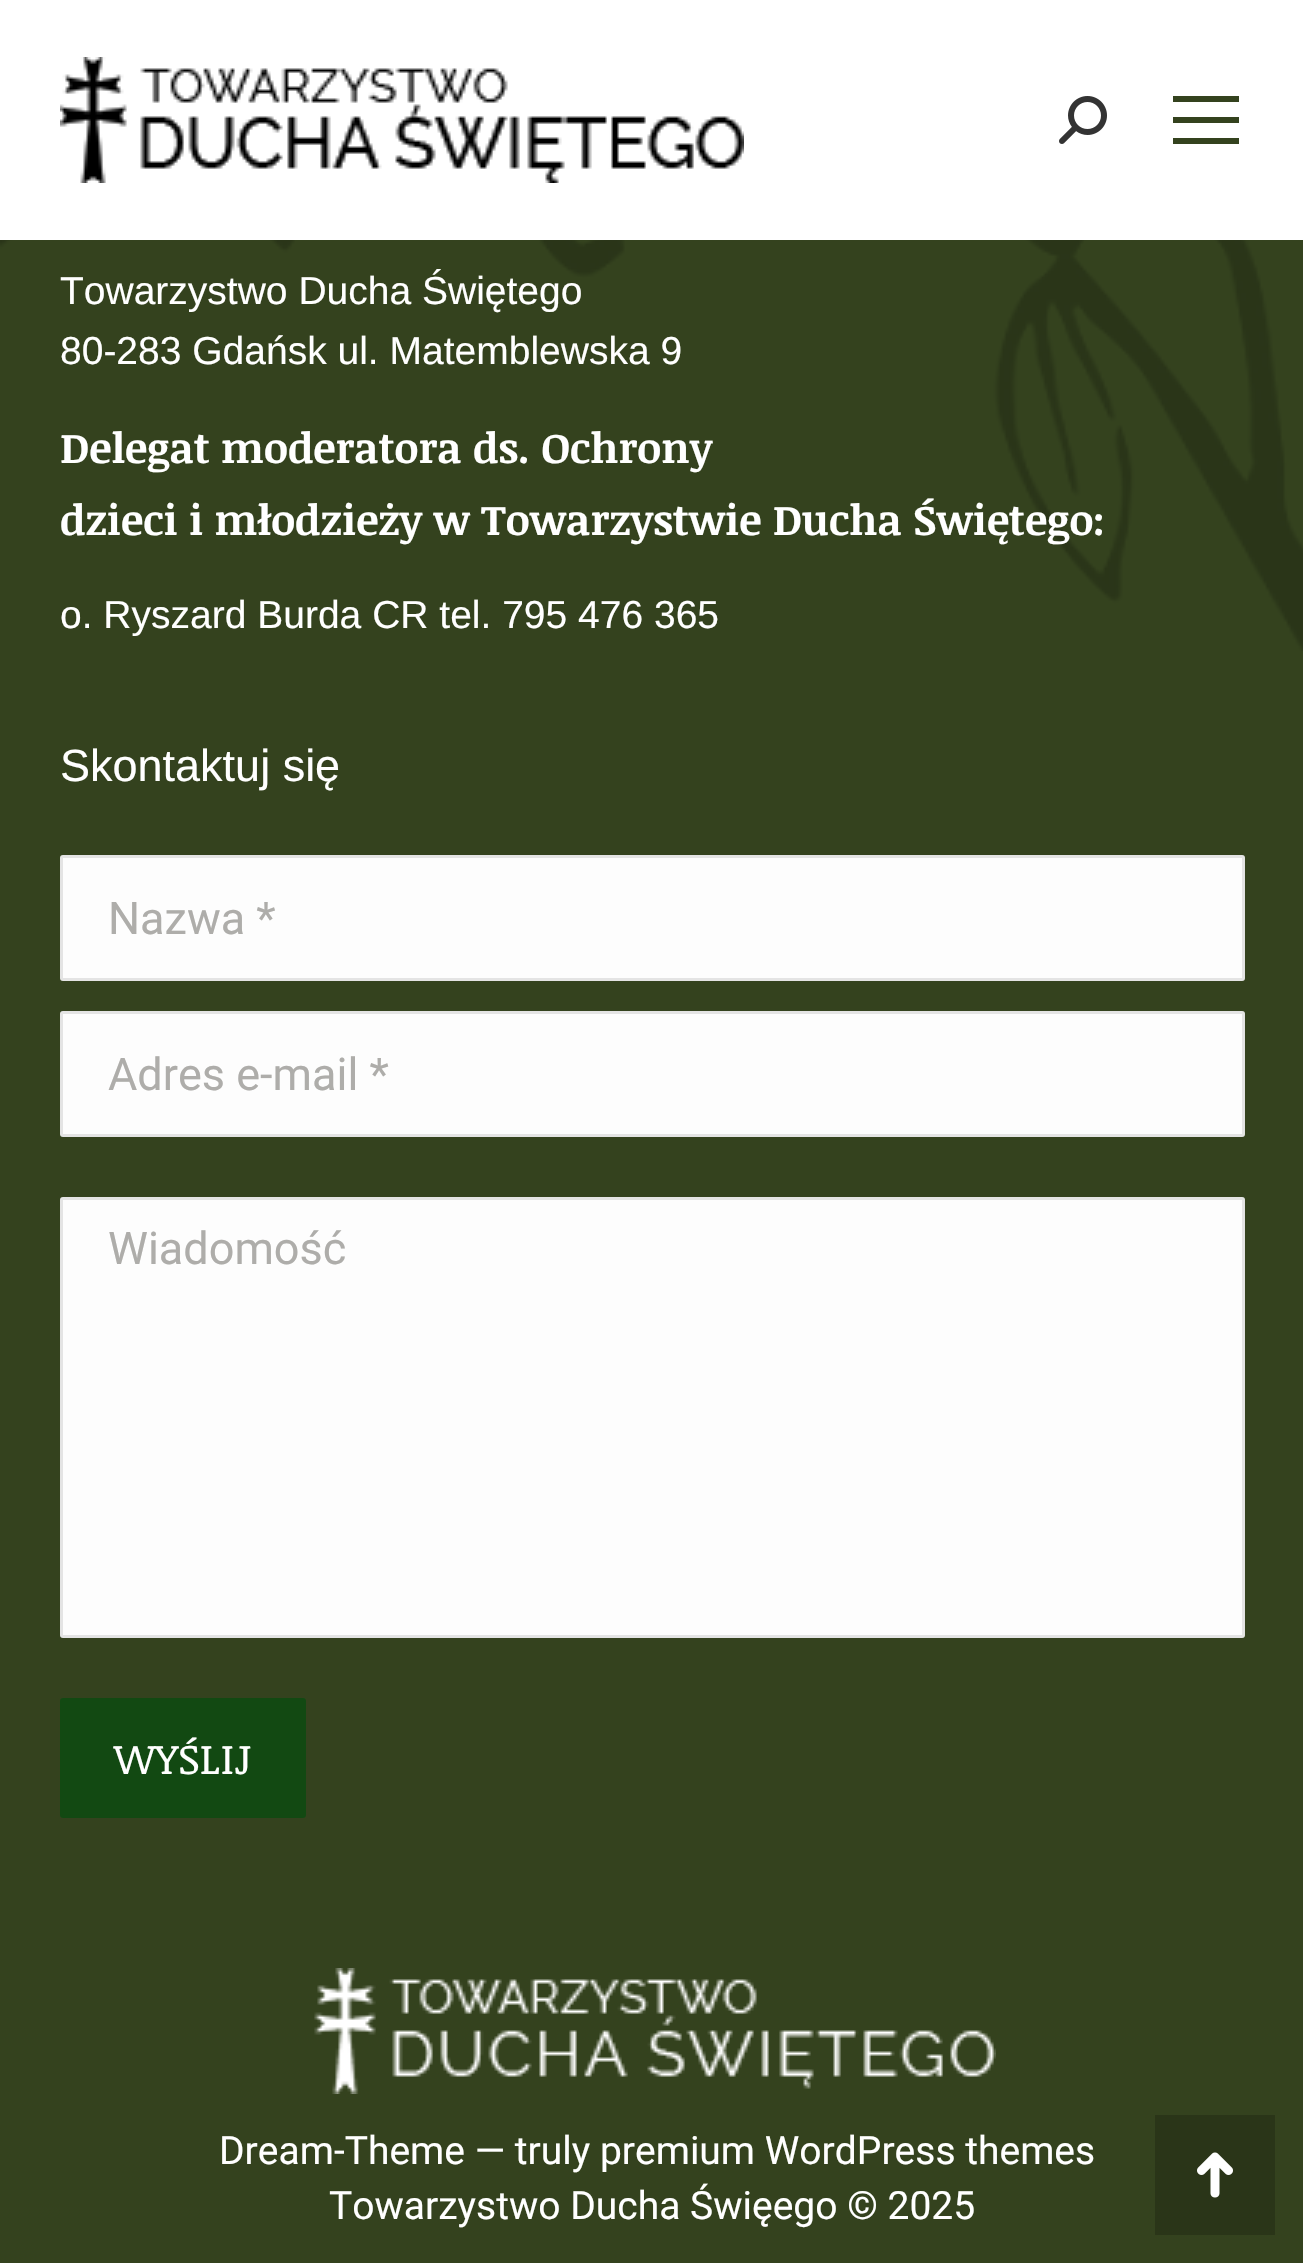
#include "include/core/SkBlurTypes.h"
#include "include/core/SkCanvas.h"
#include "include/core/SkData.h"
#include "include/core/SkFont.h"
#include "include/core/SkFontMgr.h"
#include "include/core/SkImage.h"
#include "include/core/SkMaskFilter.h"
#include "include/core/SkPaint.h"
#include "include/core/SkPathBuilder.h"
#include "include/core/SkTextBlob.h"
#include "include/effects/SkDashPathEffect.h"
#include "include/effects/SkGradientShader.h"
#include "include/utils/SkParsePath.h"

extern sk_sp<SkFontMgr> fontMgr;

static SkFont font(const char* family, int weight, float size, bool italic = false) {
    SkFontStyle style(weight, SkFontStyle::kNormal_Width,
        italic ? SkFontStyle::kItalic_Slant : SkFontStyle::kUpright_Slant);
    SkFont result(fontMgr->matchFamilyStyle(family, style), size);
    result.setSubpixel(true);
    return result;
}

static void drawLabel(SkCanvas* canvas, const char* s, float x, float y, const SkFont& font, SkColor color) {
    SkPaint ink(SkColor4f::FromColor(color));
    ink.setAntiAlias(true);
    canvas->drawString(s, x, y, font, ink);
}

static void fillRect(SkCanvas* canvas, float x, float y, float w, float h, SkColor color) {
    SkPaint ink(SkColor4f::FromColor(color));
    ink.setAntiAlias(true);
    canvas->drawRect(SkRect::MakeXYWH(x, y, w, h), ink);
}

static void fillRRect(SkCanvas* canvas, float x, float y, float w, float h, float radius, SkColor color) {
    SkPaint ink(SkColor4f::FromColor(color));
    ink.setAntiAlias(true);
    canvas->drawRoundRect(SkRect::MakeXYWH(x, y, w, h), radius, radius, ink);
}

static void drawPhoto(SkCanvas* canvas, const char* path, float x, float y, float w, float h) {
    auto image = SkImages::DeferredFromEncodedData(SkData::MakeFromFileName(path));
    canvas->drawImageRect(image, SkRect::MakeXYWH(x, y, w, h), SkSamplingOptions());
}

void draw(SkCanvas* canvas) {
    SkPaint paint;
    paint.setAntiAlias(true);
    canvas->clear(0xFF34421E);
    fillRect(canvas, 0, 0, 1303, 240, 0xFFFFFFFF);
    drawPhoto(canvas, "assets/img1.png", 60, 57, 684, 126);
    drawPhoto(canvas, "assets/img2.png", 1059, 96, 48, 48);
    fillRect(canvas, 1173, 96, 66, 6, 0xFF34421E);
    fillRect(canvas, 1173, 117, 66, 6, 0xFF34421E);
    fillRect(canvas, 1173, 138, 66, 6, 0xFF34421E);
    drawPhoto(canvas, "assets/img3.png", 0, 240, 1303, 411);
    SkFont font1 = font("Liberation Sans", 400, 39);
    drawLabel(canvas, "Towarzystwo Ducha Świętego", 60, 304, font1, 0xFFFFFFFF);
    drawLabel(canvas, "80-283 Gdańsk ul. Matemblewska 9", 60, 364, font1, 0xFFFFFFFF);
    SkFont font2 = font("Noticia Text", 700, 42);
    drawLabel(canvas, "Delegat moderatora ds. Ochrony", 60, 463, font2, 0xFFFFFFFF);
    drawLabel(canvas, "dzieci i młodzieży w Towarzystwie Ducha Świętego:", 60, 535, font2, 0xFFFFFFFF);
    drawLabel(canvas, "o. Ryszard Burda CR tel. 795 476 365", 60, 628, font1, 0xFFFFFFFF);
    SkFont font3 = font("Liberation Sans", 400, 45);
    drawLabel(canvas, "Skontaktuj się", 60, 781, font3, 0xFFFFFFFF);
    fillRRect(canvas, 60, 855, 1185, 126, 3, 0xFFFDFDFD);
    paint.setStroke(true);
    paint.setStrokeWidth(3);
    paint.setColor(0x1F333333);
    canvas->drawRoundRect(SkRect::MakeXYWH(61.5f, 856.5f, 1182, 123), 1.5f, 1.5f, paint);
    SkFont font4 = font("Roboto", 400, 45);
    drawLabel(canvas, "Nazwa *", 108, 934, font4, 0xFFAEADAA);
    fillRRect(canvas, 60, 1011, 1185, 126, 3, 0xFFFDFDFD);
    canvas->drawRoundRect(SkRect::MakeXYWH(61.5f, 1012.5f, 1182, 123), 1.5f, 1.5f, paint);
    drawLabel(canvas, "Adres e-mail *", 108, 1090, font4, 0xFFAEADAA);
    fillRRect(canvas, 60, 1197, 1185, 441, 3, 0xFFFDFDFD);
    canvas->drawRoundRect(SkRect::MakeXYWH(61.5f, 1198.5f, 1182, 438), 1.5f, 1.5f, paint);
    drawLabel(canvas, "Wiadomość", 108, 1264, font4, 0xFFAEADAA);
    fillRRect(canvas, 60, 1698, 246, 120, 3, 0xFF124912);
    SkFont font5 = font("Noticia Text", 400, 42);
    drawLabel(canvas, "WYŚLIJ", 114, 1774, font5, 0xFFFFFFFF);
    drawPhoto(canvas, "assets/img4.png", 314, 1968, 682, 126);
    SkFont font6 = font("Roboto", 400, 39);
    drawLabel(canvas, "Dream-Theme — truly premium WordPress themes", 219, 2164, font6, 0xFFFFFFFF);
    drawLabel(canvas, "Towarzystwo Ducha Święego © 2025", 329, 2219, font6, 0xFFFFFFFF);
    fillRect(canvas, 1155, 2115, 120, 120, 0xFF2A3518);
    drawPhoto(canvas, "assets/img5.png", 1197, 2152, 36, 46);
}
